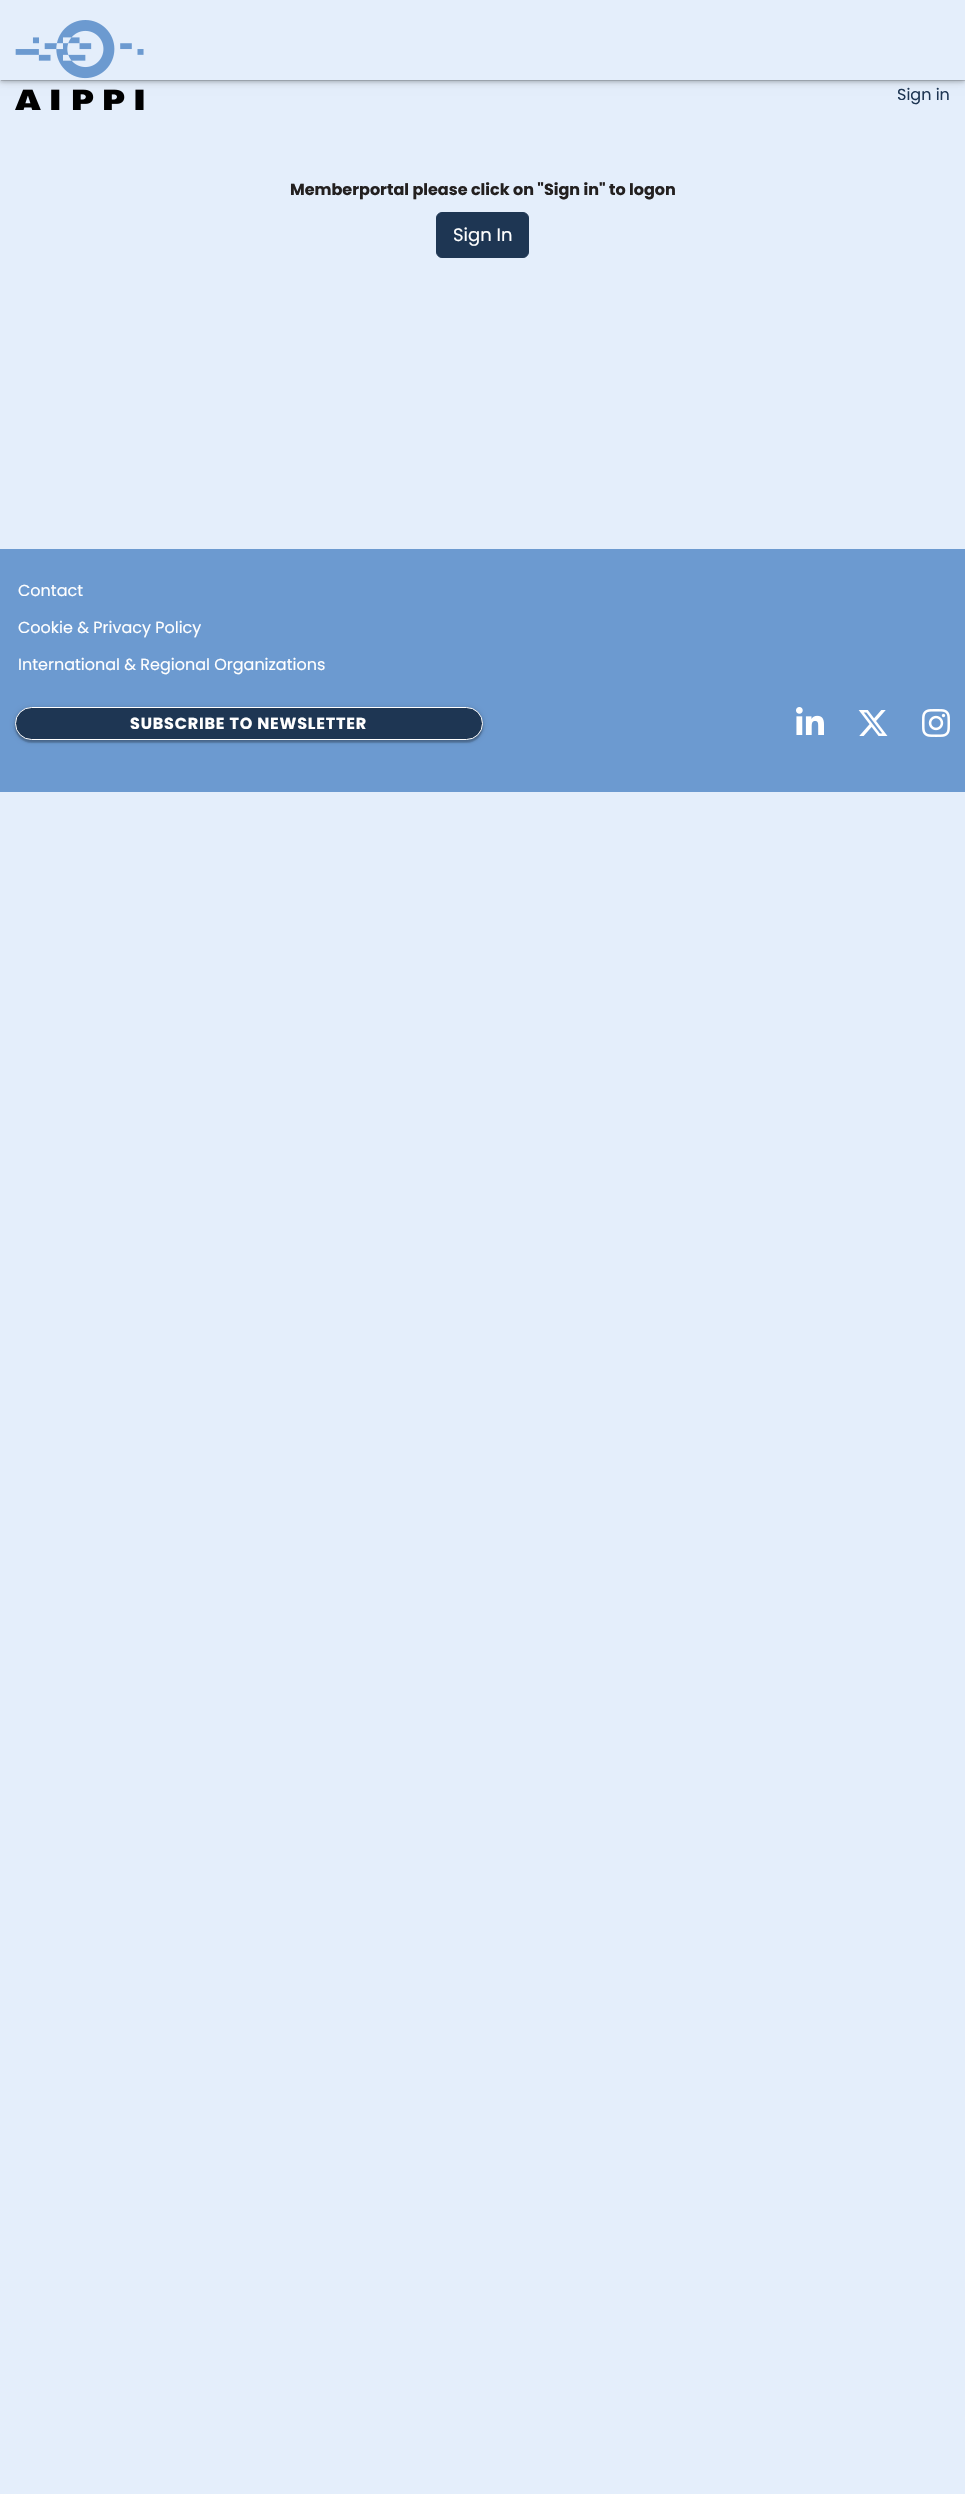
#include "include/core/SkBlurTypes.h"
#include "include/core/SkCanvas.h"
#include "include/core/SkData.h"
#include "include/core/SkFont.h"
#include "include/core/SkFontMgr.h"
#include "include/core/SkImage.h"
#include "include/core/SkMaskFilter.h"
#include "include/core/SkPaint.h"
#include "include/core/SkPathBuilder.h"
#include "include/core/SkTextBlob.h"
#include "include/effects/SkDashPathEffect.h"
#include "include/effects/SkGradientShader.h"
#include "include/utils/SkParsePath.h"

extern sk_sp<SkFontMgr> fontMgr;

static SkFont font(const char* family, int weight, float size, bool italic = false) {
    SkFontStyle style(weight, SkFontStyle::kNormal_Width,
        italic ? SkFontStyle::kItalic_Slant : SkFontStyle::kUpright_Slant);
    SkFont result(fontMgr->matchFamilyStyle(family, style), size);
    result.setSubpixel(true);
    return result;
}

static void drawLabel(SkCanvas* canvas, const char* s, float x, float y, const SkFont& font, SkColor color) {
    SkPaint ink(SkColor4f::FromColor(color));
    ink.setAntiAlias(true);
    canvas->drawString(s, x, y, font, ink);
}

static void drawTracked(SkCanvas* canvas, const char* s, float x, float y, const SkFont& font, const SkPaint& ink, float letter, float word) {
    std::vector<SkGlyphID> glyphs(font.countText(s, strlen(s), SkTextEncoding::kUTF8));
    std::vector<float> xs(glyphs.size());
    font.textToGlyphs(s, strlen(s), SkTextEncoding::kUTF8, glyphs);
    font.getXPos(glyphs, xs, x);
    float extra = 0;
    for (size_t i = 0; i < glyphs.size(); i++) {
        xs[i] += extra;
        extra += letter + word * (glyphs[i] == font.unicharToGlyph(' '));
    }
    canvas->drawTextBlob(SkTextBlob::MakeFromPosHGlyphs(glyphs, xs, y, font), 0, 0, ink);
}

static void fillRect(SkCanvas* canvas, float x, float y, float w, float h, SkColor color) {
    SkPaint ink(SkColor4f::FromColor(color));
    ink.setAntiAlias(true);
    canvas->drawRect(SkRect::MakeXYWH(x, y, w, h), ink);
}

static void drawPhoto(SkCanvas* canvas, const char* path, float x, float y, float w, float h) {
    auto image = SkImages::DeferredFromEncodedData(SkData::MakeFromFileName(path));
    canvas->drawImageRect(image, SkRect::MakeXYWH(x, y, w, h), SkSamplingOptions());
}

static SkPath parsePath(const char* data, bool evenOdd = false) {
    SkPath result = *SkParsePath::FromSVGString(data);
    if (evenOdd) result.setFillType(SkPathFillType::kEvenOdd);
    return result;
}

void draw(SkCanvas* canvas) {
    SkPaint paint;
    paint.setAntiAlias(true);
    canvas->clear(0xFFE4EEFB);
    paint.setColor(0x33000000);
    paint.setMaskFilter(SkMaskFilter::MakeBlur(kNormal_SkBlurStyle, 2));
    canvas->drawRect(SkRect::MakeXYWH(0, 2, 965, 80), paint);
    paint.setMaskFilter(nullptr);
    paint.setColor(0x1F000000);
    paint.setMaskFilter(SkMaskFilter::MakeBlur(kNormal_SkBlurStyle, 5));
    canvas->drawRect(SkRect::MakeXYWH(0, 1, 965, 80), paint);
    paint.setMaskFilter(nullptr);
    paint.setColor(0x24000000);
    canvas->drawPath(parsePath("M1 80V81H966V1H965V80Z"), paint);
    fillRect(canvas, 0, 0, 965, 80, 0xFFE4EEFB);
    drawPhoto(canvas, "assets/img1.png", 15, 20, 129, 90);
    SkFont font1 = font("Poppins", 400, 16);
    drawLabel(canvas, "Sign in", 897, 100, font1, 0xFF1E3653);
    SkFont font2 = font("Poppins", 700, 16);
    drawLabel(canvas, "Memberportal please click on \"Sign in\" to logon", 290, 195, font2, 0xFF232020);
    paint.setColor(0xFF1E3653);
    canvas->drawRoundRect(SkRect::MakeXYWH(436.5f, 212.5f, 92, 45), 5.5f, 5.5f, paint);
    paint.setStroke(true);
    paint.setStrokeWidth(1);
    canvas->drawRoundRect(SkRect::MakeXYWH(436.5f, 212.5f, 92, 45), 5.5f, 5.5f, paint);
    SkFont font3 = font("Poppins", 400, 18);
    drawLabel(canvas, "Sign In", 453, 241, font3, 0xFFFFFFFF);
    fillRect(canvas, 0, 549, 965, 243, 0xFF6C9AD0);
    drawLabel(canvas, "Contact", 18, 596, font1, 0xFFFFFFFF);
    drawLabel(canvas, "Cookie & Privacy Policy", 18, 633, font1, 0xFFFFFFFF);
    drawLabel(canvas, "International & Regional Organizations", 18, 670, font1, 0xFFFFFFFF);
    paint.setStroke(false);
    paint.setColor(0x33000000);
    paint.setMaskFilter(SkMaskFilter::MakeBlur(kNormal_SkBlurStyle, 2.5f));
    canvas->drawRoundRect(SkRect::MakeXYWH(15, 708, 468, 33), 16.5f, 16.5f, paint);
    paint.setMaskFilter(nullptr);
    paint.setColor(0x1F000000);
    paint.setMaskFilter(SkMaskFilter::MakeBlur(kNormal_SkBlurStyle, 0.5f));
    canvas->drawRoundRect(SkRect::MakeXYWH(15, 710, 468, 33), 16.5f, 16.5f, paint);
    paint.setMaskFilter(nullptr);
    paint.setColor(0x24000000);
    paint.setMaskFilter(SkMaskFilter::MakeBlur(kNormal_SkBlurStyle, 1));
    canvas->drawRoundRect(SkRect::MakeXYWH(15, 709, 468, 33), 16.5f, 16.5f, paint);
    paint.setMaskFilter(nullptr);
    paint.setColor(0xFF1E3653);
    canvas->drawRoundRect(SkRect::MakeXYWH(15.5f, 707.5f, 467, 32), 16, 16, paint);
    paint.setStroke(true);
    paint.setColor(0xFFFFFFFF);
    canvas->drawRoundRect(SkRect::MakeXYWH(15.5f, 707.5f, 467, 32), 16, 16, paint);
    paint.setStroke(false);
    drawTracked(canvas, "SUBSCRIBE TO NEWSLETTER", 130, 729, font2, paint, 0.8f, 0);
    drawPhoto(canvas, "assets/img2.png", 796, 707, 28, 28);
    drawPhoto(canvas, "assets/img3.png", 858, 710, 30, 26);
    drawPhoto(canvas, "assets/img4.png", 922, 709, 28, 28);
}
